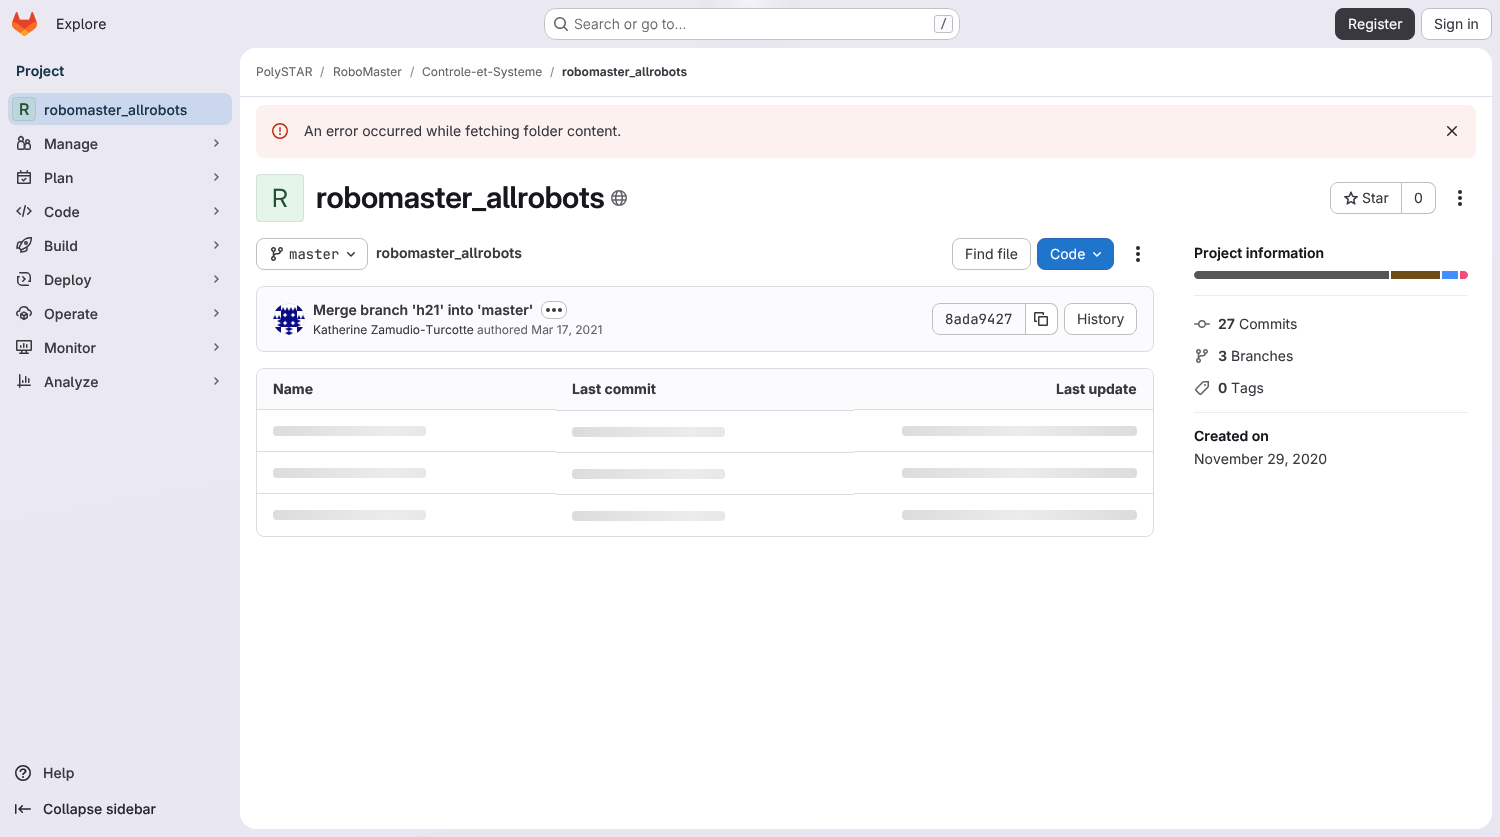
#include "include/core/SkBlurTypes.h"
#include "include/core/SkCanvas.h"
#include "include/core/SkData.h"
#include "include/core/SkFont.h"
#include "include/core/SkFontMgr.h"
#include "include/core/SkImage.h"
#include "include/core/SkMaskFilter.h"
#include "include/core/SkPaint.h"
#include "include/core/SkPathBuilder.h"
#include "include/core/SkTextBlob.h"
#include "include/effects/SkDashPathEffect.h"
#include "include/effects/SkGradientShader.h"
#include "include/utils/SkParsePath.h"

extern sk_sp<SkFontMgr> fontMgr;

static SkFont font(const char* family, int weight, float size, bool italic = false) {
    SkFontStyle style(weight, SkFontStyle::kNormal_Width,
        italic ? SkFontStyle::kItalic_Slant : SkFontStyle::kUpright_Slant);
    SkFont result(fontMgr->matchFamilyStyle(family, style), size);
    result.setSubpixel(true);
    return result;
}

static void drawLabel(SkCanvas* canvas, const char* s, float x, float y, const SkFont& font, SkColor color) {
    SkPaint ink(SkColor4f::FromColor(color));
    ink.setAntiAlias(true);
    canvas->drawString(s, x, y, font, ink);
}

static void drawTracked(SkCanvas* canvas, const char* s, float x, float y, const SkFont& font, const SkPaint& ink, float letter, float word) {
    std::vector<SkGlyphID> glyphs(font.countText(s, strlen(s), SkTextEncoding::kUTF8));
    std::vector<float> xs(glyphs.size());
    font.textToGlyphs(s, strlen(s), SkTextEncoding::kUTF8, glyphs);
    font.getXPos(glyphs, xs, x);
    float extra = 0;
    for (size_t i = 0; i < glyphs.size(); i++) {
        xs[i] += extra;
        extra += letter + word * (glyphs[i] == font.unicharToGlyph(' '));
    }
    canvas->drawTextBlob(SkTextBlob::MakeFromPosHGlyphs(glyphs, xs, y, font), 0, 0, ink);
}

static void fillRect(SkCanvas* canvas, float x, float y, float w, float h, SkColor color) {
    SkPaint ink(SkColor4f::FromColor(color));
    ink.setAntiAlias(true);
    canvas->drawRect(SkRect::MakeXYWH(x, y, w, h), ink);
}

static void fillRRect(SkCanvas* canvas, float x, float y, float w, float h, float radius, SkColor color) {
    SkPaint ink(SkColor4f::FromColor(color));
    ink.setAntiAlias(true);
    canvas->drawRoundRect(SkRect::MakeXYWH(x, y, w, h), radius, radius, ink);
}

static void drawPhoto(SkCanvas* canvas, const char* path, float x, float y, float w, float h) {
    auto image = SkImages::DeferredFromEncodedData(SkData::MakeFromFileName(path));
    canvas->drawImageRect(image, SkRect::MakeXYWH(x, y, w, h), SkSamplingOptions());
}

static SkPath parsePath(const char* data, bool evenOdd = false) {
    SkPath result = *SkParsePath::FromSVGString(data);
    if (evenOdd) result.setFillType(SkPathFillType::kEvenOdd);
    return result;
}

void draw(SkCanvas* canvas) {
    SkPaint paint;
    paint.setAntiAlias(true);
    canvas->clear(0xFFFFFFFF);
    {
        const SkColor colors[] = {0xFFE8E6F0, 0xFFEAE9F2};
        const float stops[] = {0, 0.7f};
        const SkPoint ends[] = {{844, 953}, {656, -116}};
        paint.setShader(SkGradientShader::MakeLinear(ends, colors, stops, 2, SkTileMode::kClamp));
        paint.setAlpha(255);
    }
    canvas->drawRect(SkRect::MakeXYWH(0, 0, 1500, 837), paint);
    {
        const SkColor colors[] = {0xFFE4E2ED, 0x00E4E2ED};
        const float stops[] = {0, 0.09f};
        SkMatrix m = SkMatrix::Translate(750, 0).preScale(750, 837);
        paint.setShader(SkGradientShader::MakeRadial({0, 0}, 1, colors, stops, 2, SkTileMode::kClamp, 0, &m));
        paint.setAlpha(255);
    }
    canvas->drawRect(SkRect::MakeXYWH(701, 0, 98, 48), paint);
    {
        const SkColor colors[] = {0xFFE4E2EC, 0x00E4E2EC};
        const float stops[] = {0, 0.07f};
        SkMatrix m = SkMatrix::Translate(750, 0).preScale(750, 837);
        paint.setShader(SkGradientShader::MakeRadial({0, 0}, 1, colors, stops, 2, SkTileMode::kClamp, 0, &m));
        paint.setAlpha(255);
    }
    canvas->drawRect(SkRect::MakeXYWH(725, 1, 53, 26), paint);
    {
        const SkColor colors[] = {0x99FFFFFF, 0x00FFFFFF};
        const float stops[] = {0, 0.04f};
        paint.setShader(SkGradientShader::MakeRadial({750, 0}, 1124, colors, stops, 2, SkTileMode::kClamp));
        paint.setAlpha(255);
    }
    canvas->drawRect(SkRect::MakeXYWH(712, 0, 76, 38), paint);
    drawPhoto(canvas, "assets/img1.png", 12, 12, 25, 24);
    SkFont font1 = font("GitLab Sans", 400, 14);
    drawLabel(canvas, "Explore", 56, 29, font1, 0xFF28272D);
    fillRRect(canvas, 544, 8, 416, 32, 12, 0xFFFFFFFF);
    paint.setStroke(true);
    paint.setStrokeWidth(1);
    paint.setShader(nullptr);
    paint.setColor(0x3D050506);
    canvas->drawRoundRect(SkRect::MakeXYWH(544.5f, 8.5f, 415, 31), 11.5f, 11.5f, paint);
    drawPhoto(canvas, "assets/img2.png", 554, 17, 14, 14);
    SkFont font2 = font("GitLab Sans", 300, 14);
    drawLabel(canvas, "Search or go to…", 574, 29, font2, 0xFF626168);
    paint.setStroke(false);
    paint.setColor(0xFFFBFAFD);
    canvas->drawRoundRect(SkRect::MakeXYWH(934.5f, 15.5f, 18, 17), 2.5f, 2.5f, paint);
    paint.setStroke(true);
    paint.setColor(0xFFBFBFC3);
    canvas->drawRoundRect(SkRect::MakeXYWH(934.5f, 15.5f, 18, 17), 2.5f, 2.5f, paint);
    SkFont font3 = font("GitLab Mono", 500, 12);
    drawLabel(canvas, "/", 940, 28, font3, 0xFF626168);
    paint.setStroke(false);
    paint.setColor(0xFF3A383F);
    canvas->drawRoundRect(SkRect::MakeXYWH(1335.5f, 8.5f, 79, 31), 7.5f, 7.5f, paint);
    paint.setStroke(true);
    canvas->drawRoundRect(SkRect::MakeXYWH(1335.5f, 8.5f, 79, 31), 7.5f, 7.5f, paint);
    drawLabel(canvas, "Register", 1348, 29, font1, 0xFFFFFFFF);
    paint.setStroke(false);
    paint.setColor(0xFFFFFFFF);
    canvas->drawRoundRect(SkRect::MakeXYWH(1421.5f, 8.5f, 70, 31), 7.5f, 7.5f, paint);
    paint.setStroke(true);
    paint.setColor(0xFFBFBFC3);
    canvas->drawRoundRect(SkRect::MakeXYWH(1421.5f, 8.5f, 70, 31), 7.5f, 7.5f, paint);
    drawLabel(canvas, "Sign in", 1434, 29, font1, 0xFF3A383F);
    SkFont font4 = font("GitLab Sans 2", 600, 14);
    drawLabel(canvas, "Project", 16, 76, font4, 0xFF18334E);
    fillRRect(canvas, 8, 93, 224, 32, 8, 0xFFCAD7EC);
    fillRRect(canvas, 12, 97, 24, 24, 4, 0xFFBCD6DC);
    paint.setColor(0x14050506);
    canvas->drawRoundRect(SkRect::MakeXYWH(12.5f, 97.5f, 23, 23), 3.5f, 3.5f, paint);
    SkFont font5 = font("GitLab Sans 2", 500, 16);
    drawLabel(canvas, "R", 19, 115, font5, 0xFF225131);
    SkFont font6 = font("GitLab Sans", 500, 14);
    drawLabel(canvas, "robomaster_allrobots", 44, 115, font6, 0xFF18334E);
    drawPhoto(canvas, "assets/img3.png", 17, 135, 14, 15);
    drawLabel(canvas, "Manage", 44, 149, font6, 0xFF3A383F);
    paint.setStrokeWidth(1.5f);
    paint.setStrokeCap(SkPaint::kRound_Cap);
    paint.setStrokeJoin(SkPaint::kRound_Join);
    paint.setColor(0xFF626168);
    canvas->drawPath(parsePath("M215 140L218 143L215 146"), paint);
    drawPhoto(canvas, "assets/img4.png", 17, 170, 14, 14);
    drawLabel(canvas, "Plan", 44, 183, font6, 0xFF3A383F);
    canvas->drawPath(parsePath("M215 174L218 177L215 180"), paint);
    drawPhoto(canvas, "assets/img5.png", 16, 205, 16, 12);
    drawLabel(canvas, "Code", 44, 217, font6, 0xFF3A383F);
    canvas->drawPath(parsePath("M215 208L218 211L215 214"), paint);
    drawPhoto(canvas, "assets/img6.png", 16, 237, 16, 16);
    drawLabel(canvas, "Build", 44, 251, font6, 0xFF3A383F);
    canvas->drawPath(parsePath("M215 242L218 245L215 248"), paint);
    drawPhoto(canvas, "assets/img7.png", 17, 272, 14, 14);
    drawLabel(canvas, "Deploy", 44, 285, font6, 0xFF3A383F);
    canvas->drawPath(parsePath("M215 276L218 279L215 282"), paint);
    drawPhoto(canvas, "assets/img8.png", 16, 306, 16, 15);
    drawLabel(canvas, "Operate", 44, 319, font6, 0xFF3A383F);
    canvas->drawPath(parsePath("M215 310L218 313L215 316"), paint);
    drawPhoto(canvas, "assets/img9.png", 16, 340, 16, 14);
    drawLabel(canvas, "Monitor", 44, 353, font6, 0xFF3A383F);
    canvas->drawPath(parsePath("M215 344L218 347L215 350"), paint);
    drawPhoto(canvas, "assets/img10.png", 17, 374, 14, 14);
    drawLabel(canvas, "Analyze", 44, 387, font6, 0xFF3A383F);
    canvas->drawPath(parsePath("M215 378L218 381L215 384"), paint);
    drawPhoto(canvas, "assets/img11.png", 15, 765, 16, 16);
    drawLabel(canvas, "Help", 43, 778, font6, 0xFF3A383F);
    drawPhoto(canvas, "assets/img12.png", 15, 804, 16, 10);
    drawLabel(canvas, "Collapse sidebar", 43, 814, font6, 0xFF28272D);
    fillRRect(canvas, 240, 48, 1252, 781, 16, 0xFFFFFFFF);
    paint.setStroke(false);
    paint.setColor(0xFFFFFFFF);
    canvas->drawPath(parsePath("M256 48H1476C1485 48 1492 55 1492 64V97H240V64C240 55 247 48 256 48Z"), paint);
    fillRect(canvas, 240, 96, 1252, 1, 0xFFE1DFEC);
    SkFont font7 = font("GitLab Sans", 400, 12);
    drawLabel(canvas, "PolySTAR", 256, 76, font7, 0xFF626168);
    drawLabel(canvas, "/", 320, 76, font7, 0xFF89888D);
    drawLabel(canvas, "RoboMaster", 333, 76, font7, 0xFF626168);
    drawLabel(canvas, "/", 410, 76, font7, 0xFF89888D);
    drawLabel(canvas, "Controle-et-Systeme", 422, 76, font7, 0xFF626168);
    drawLabel(canvas, "/", 550, 76, font7, 0xFF89888D);
    SkFont font8 = font("GitLab Sans 2", 600, 12);
    drawLabel(canvas, "robomaster_allrobots", 562, 76, font8, 0xFF3A383F);
    fillRRect(canvas, 256, 105, 1220, 53, 8, 0xFFFCF1EF);
    drawPhoto(canvas, "assets/img13.png", 272, 123, 16, 16);
    drawLabel(canvas, "An error occurred while fetching folder content.", 304, 136, font1, 0xFF3A383F);
    drawPhoto(canvas, "assets/img14.png", 1447, 126, 10, 10);
    fillRRect(canvas, 256, 174, 48, 48, 4, 0xFFE5F5EA);
    paint.setStroke(true);
    paint.setStrokeWidth(1);
    paint.setStrokeCap(SkPaint::kButt_Cap);
    paint.setStrokeJoin(SkPaint::kMiter_Join);
    paint.setColor(0x14050506);
    canvas->drawRoundRect(SkRect::MakeXYWH(256.5f, 174.5f, 47, 47), 3.5f, 3.5f, paint);
    SkFont font9 = font("GitLab Sans 2", 400, 25);
    drawLabel(canvas, "R", 272, 207, font9, 0xFF225131);
    SkFont font10 = font("GitLab Sans", 600, 30);
    paint.setStroke(false);
    paint.setColor(0xFF18171D);
    drawTracked(canvas, "robomaster_allrobots", 316, 208, font10, paint, -0.25f, 0);
    drawPhoto(canvas, "assets/img15.png", 611, 190, 16, 16);
    paint.setColor(0xFFBFBFC3);
    canvas->drawPath(parsePath("M1338 182H1401V214H1338C1334 214 1330 210 1330 206V190C1330 186 1334 182 1338 182ZM1338 183H1401V213H1338C1334 213 1331 210 1331 206V190C1331 186 1334 183 1338 183Z", true), paint);
    drawPhoto(canvas, "assets/img16.png", 1344, 191, 14, 14);
    drawLabel(canvas, "Star", 1362, 203, font1, 0xFF3A383F);
    canvas->drawPath(parsePath("M1402 182H1428C1432.5 182 1436 185.5 1436 190V206C1436 210.5 1432.5 214 1428 214H1402ZM1402 183H1428C1432 183 1435 186 1435 190V206C1435 210 1432 213 1428 213H1402Z", true), paint);
    fillRect(canvas, 1401, 182, 1, 32, 0xFFBFBFC3);
    drawLabel(canvas, "0", 1414, 203, font1, 0xFF3A383F);
    drawPhoto(canvas, "assets/img17.png", 1458, 190, 4, 16);
    paint.setStroke(true);
    canvas->drawRoundRect(SkRect::MakeXYWH(256.5f, 238.5f, 111, 31), 7.5f, 7.5f, paint);
    drawPhoto(canvas, "assets/img18.png", 271, 247, 12, 14);
    SkFont font11 = font("GitLab Mono", 400, 14);
    drawLabel(canvas, "master", 289, 259, font11, 0xFF3A383F);
    drawPhoto(canvas, "assets/img19.png", 347, 252, 8, 5);
    drawLabel(canvas, "robomaster_allrobots", 376, 258, font4, 0xFF3A383F);
    canvas->drawRoundRect(SkRect::MakeXYWH(952.5f, 238.5f, 78, 31), 7.5f, 7.5f, paint);
    drawLabel(canvas, "Find file", 965, 259, font1, 0xFF3A383F);
    paint.setStroke(false);
    paint.setColor(0xFF1F75CB);
    canvas->drawRoundRect(SkRect::MakeXYWH(1037.5f, 238.5f, 76, 31), 7.5f, 7.5f, paint);
    paint.setStroke(true);
    paint.setColor(0xFF2F68B4);
    canvas->drawRoundRect(SkRect::MakeXYWH(1037.5f, 238.5f, 76, 31), 7.5f, 7.5f, paint);
    drawLabel(canvas, "Code", 1050, 259, font1, 0xFFFFFFFF);
    drawPhoto(canvas, "assets/img20.png", 1093, 252, 8, 5);
    drawPhoto(canvas, "assets/img21.png", 1136, 246, 4, 16);
    paint.setStroke(false);
    paint.setColor(0xFFFBFAFD);
    canvas->drawRoundRect(SkRect::MakeXYWH(256.5f, 286.5f, 897, 65), 7.5f, 7.5f, paint);
    paint.setStroke(true);
    paint.setColor(0xFFDCDCDE);
    canvas->drawRoundRect(SkRect::MakeXYWH(256.5f, 286.5f, 897, 65), 7.5f, 7.5f, paint);
    drawPhoto(canvas, "assets/img22.png", 273, 303, 32, 32);
    paint.setColor(0x14050506);
    canvas->drawCircle(289, 319, 15.5f, paint);
    drawLabel(canvas, "Merge branch 'h21' into 'master'", 313, 315, font4, 0xFF3A383F);
    paint.setStroke(false);
    paint.setColor(0xFFFFFFFF);
    canvas->drawRoundRect(SkRect::MakeXYWH(541.5f, 301.5f, 25, 17), 7.5f, 7.5f, paint);
    paint.setStroke(true);
    paint.setColor(0xFFBFBFC3);
    canvas->drawRoundRect(SkRect::MakeXYWH(541.5f, 301.5f, 25, 17), 7.5f, 7.5f, paint);
    drawPhoto(canvas, "assets/img23.png", 546, 308, 16, 4);
    drawLabel(canvas, "Katherine Zamudio-Turcotte", 313, 334, font7, 0xFF3A383F);
    drawLabel(canvas, "authored Mar 17, 2021", 477, 334, font7, 0xFF626168);
    paint.setStroke(false);
    canvas->drawPath(parsePath("M940 303H1025V335H940C936 335 932 331 932 327V311C932 307 936 303 940 303ZM940 304H1025V334H940C936 334 933 331 933 327V311C933 307 936 304 940 304Z", true), paint);
    drawLabel(canvas, "8ada9427", 945, 324, font11, 0xFF3A383F);
    paint.setColor(0xFFFFFFFF);
    canvas->drawPath(parsePath("M1026 304H1050C1054 304 1057 307 1057 311V327C1057 331 1054 334 1050 334H1026Z"), paint);
    paint.setColor(0xFFBFBFC3);
    canvas->drawPath(parsePath("M1026 303H1050C1054.5 303 1058 306.5 1058 311V327C1058 331.5 1054.5 335 1050 335H1026ZM1026 304H1050C1054 304 1057 307 1057 311V327C1057 331 1054 334 1050 334H1026Z", true), paint);
    fillRect(canvas, 1025, 303, 1, 32, 0xFFBFBFC3);
    drawPhoto(canvas, "assets/img24.png", 1034, 312, 14, 14);
    paint.setColor(0xFFFFFFFF);
    canvas->drawRoundRect(SkRect::MakeXYWH(1064.5f, 303.5f, 72, 31), 7.5f, 7.5f, paint);
    paint.setStroke(true);
    paint.setColor(0xFFBFBFC3);
    canvas->drawRoundRect(SkRect::MakeXYWH(1064.5f, 303.5f, 72, 31), 7.5f, 7.5f, paint);
    drawLabel(canvas, "History", 1077, 324, font1, 0xFF3A383F);
    paint.setColor(0xFFDCDCDE);
    canvas->drawRoundRect(SkRect::MakeXYWH(256.5f, 368.5f, 897, 168), 7.5f, 7.5f, paint);
    paint.setStroke(false);
    paint.setColor(0xFFFBFAFD);
    canvas->drawPath(parsePath("M264 369H556V410H257V376C257 372 260 369 264 369Z"), paint);
    SkFont font12 = font("GitLab Sans", 700, 14);
    drawLabel(canvas, "Name", 273, 394, font12, 0xFF3A383F);
    fillRect(canvas, 556, 369, 298, 41, 0xFFFBFAFD);
    drawLabel(canvas, "Last commit", 572, 394, font12, 0xFF3A383F);
    canvas->drawPath(parsePath("M854 369H1146C1150 369 1153 372 1153 376V410H854Z"), paint);
    drawLabel(canvas, "Last update", 1056, 394, font12, 0xFF3A383F);
    fillRect(canvas, 257, 409, 299, 1, 0xFFDCDCDE);
    {
        const SkColor colors[] = {0xFFDCDCDE, 0xFFECECEF, 0xFFDCDCDE};
        const float stops[] = {0, 0.5f, 1};
        const SkPoint ends[] = {{273, 426}, {508, 426}};
        paint.setShader(SkGradientShader::MakeLinear(ends, colors, stops, 3, SkTileMode::kClamp));
        paint.setAlpha(255);
    }
    canvas->drawRoundRect(SkRect::MakeXYWH(273, 426, 153, 10), 4, 4, paint);
    fillRect(canvas, 556, 410, 298, 1, 0xFFDCDCDE);
    {
        const SkColor colors[] = {0xFFDCDCDE, 0xFFECECEF, 0xFFDCDCDE};
        const float stops[] = {0, 0.5f, 1};
        const SkPoint ends[] = {{572, 427}, {807, 427}};
        paint.setShader(SkGradientShader::MakeLinear(ends, colors, stops, 3, SkTileMode::kClamp));
        paint.setAlpha(255);
    }
    canvas->drawRoundRect(SkRect::MakeXYWH(572, 427, 153, 10), 4, 4, paint);
    fillRect(canvas, 854, 409, 299, 1, 0xFFDCDCDE);
    {
        const SkColor colors[] = {0xFFDCDCDE, 0xFFECECEF, 0xFFDCDCDE};
        const float stops[] = {0, 0.5f, 1};
        const SkPoint ends[] = {{902, 426}, {1137, 426}};
        paint.setShader(SkGradientShader::MakeLinear(ends, colors, stops, 3, SkTileMode::kClamp));
        paint.setAlpha(255);
    }
    canvas->drawRoundRect(SkRect::MakeXYWH(902, 426, 235, 10), 4, 4, paint);
    fillRect(canvas, 257, 451, 299, 1, 0xFFDCDCDE);
    {
        const SkColor colors[] = {0xFFDCDCDE, 0xFFECECEF, 0xFFDCDCDE};
        const float stops[] = {0, 0.5f, 1};
        const SkPoint ends[] = {{273, 468}, {508, 468}};
        paint.setShader(SkGradientShader::MakeLinear(ends, colors, stops, 3, SkTileMode::kClamp));
        paint.setAlpha(255);
    }
    canvas->drawRoundRect(SkRect::MakeXYWH(273, 468, 153, 10), 4, 4, paint);
    fillRect(canvas, 556, 452, 298, 1, 0xFFDCDCDE);
    {
        const SkColor colors[] = {0xFFDCDCDE, 0xFFECECEF, 0xFFDCDCDE};
        const float stops[] = {0, 0.5f, 1};
        const SkPoint ends[] = {{572, 469}, {807, 469}};
        paint.setShader(SkGradientShader::MakeLinear(ends, colors, stops, 3, SkTileMode::kClamp));
        paint.setAlpha(255);
    }
    canvas->drawRoundRect(SkRect::MakeXYWH(572, 469, 153, 10), 4, 4, paint);
    fillRect(canvas, 854, 451, 299, 1, 0xFFDCDCDE);
    {
        const SkColor colors[] = {0xFFDCDCDE, 0xFFECECEF, 0xFFDCDCDE};
        const float stops[] = {0, 0.5f, 1};
        const SkPoint ends[] = {{902, 468}, {1137, 468}};
        paint.setShader(SkGradientShader::MakeLinear(ends, colors, stops, 3, SkTileMode::kClamp));
        paint.setAlpha(255);
    }
    canvas->drawRoundRect(SkRect::MakeXYWH(902, 468, 235, 10), 4, 4, paint);
    fillRect(canvas, 257, 493, 299, 1, 0xFFDCDCDE);
    {
        const SkColor colors[] = {0xFFDCDCDE, 0xFFECECEF, 0xFFDCDCDE};
        const float stops[] = {0, 0.5f, 1};
        const SkPoint ends[] = {{273, 510}, {508, 510}};
        paint.setShader(SkGradientShader::MakeLinear(ends, colors, stops, 3, SkTileMode::kClamp));
        paint.setAlpha(255);
    }
    canvas->drawRoundRect(SkRect::MakeXYWH(273, 510, 153, 10), 4, 4, paint);
    fillRect(canvas, 556, 494, 298, 1, 0xFFDCDCDE);
    {
        const SkColor colors[] = {0xFFDCDCDE, 0xFFECECEF, 0xFFDCDCDE};
        const float stops[] = {0, 0.5f, 1};
        const SkPoint ends[] = {{572, 511}, {807, 511}};
        paint.setShader(SkGradientShader::MakeLinear(ends, colors, stops, 3, SkTileMode::kClamp));
        paint.setAlpha(255);
    }
    canvas->drawRoundRect(SkRect::MakeXYWH(572, 511, 153, 10), 4, 4, paint);
    fillRect(canvas, 854, 493, 299, 1, 0xFFDCDCDE);
    {
        const SkColor colors[] = {0xFFDCDCDE, 0xFFECECEF, 0xFFDCDCDE};
        const float stops[] = {0, 0.5f, 1};
        const SkPoint ends[] = {{902, 510}, {1137, 510}};
        paint.setShader(SkGradientShader::MakeLinear(ends, colors, stops, 3, SkTileMode::kClamp));
        paint.setAlpha(255);
    }
    canvas->drawRoundRect(SkRect::MakeXYWH(902, 510, 235, 10), 4, 4, paint);
    fillRect(canvas, 1194, 295, 274, 1, 0xFFECECEF);
    drawLabel(canvas, "Project information", 1194, 258, font4, 0xFF18171D);
    paint.setShader(nullptr);
    paint.setColor(0xFF555555);
    canvas->drawPath(parsePath("M1198 271H1389V279H1198C1196 279 1194 277 1194 275C1194 273 1196 271 1198 271Z"), paint);
    fillRect(canvas, 1391, 271, 49, 8, 0xFF6E4C13);
    fillRect(canvas, 1442, 271, 16, 8, 0xFF438EFF);
    paint.setColor(0xFFF34B7D);
    canvas->drawPath(parsePath("M1460 271H1464C1466 271 1468 273 1468 275C1468 277 1466 279 1464 279H1460Z"), paint);
    fillRect(canvas, 1194, 412, 274, 1, 0xFFECECEF);
    drawPhoto(canvas, "assets/img25.png", 1194, 320, 16, 8);
    drawLabel(canvas, "27", 1218, 329, font4, 0xFF3A383F);
    drawLabel(canvas, "Commits", 1239, 329, font1, 0xFF3A383F);
    drawPhoto(canvas, "assets/img26.png", 1196, 349, 12, 14);
    drawLabel(canvas, "3", 1218, 361, font4, 0xFF3A383F);
    drawLabel(canvas, "Branches", 1231, 361, font1, 0xFF3A383F);
    drawPhoto(canvas, "assets/img27.png", 1195, 381, 14, 14);
    drawLabel(canvas, "0", 1218, 393, font4, 0xFF3A383F);
    drawLabel(canvas, "Tags", 1231, 393, font1, 0xFF3A383F);
    drawLabel(canvas, "Created on", 1194, 441, font4, 0xFF18171D);
    drawLabel(canvas, "November 29, 2020", 1194, 464, font1, 0xFF3A383F);
}
